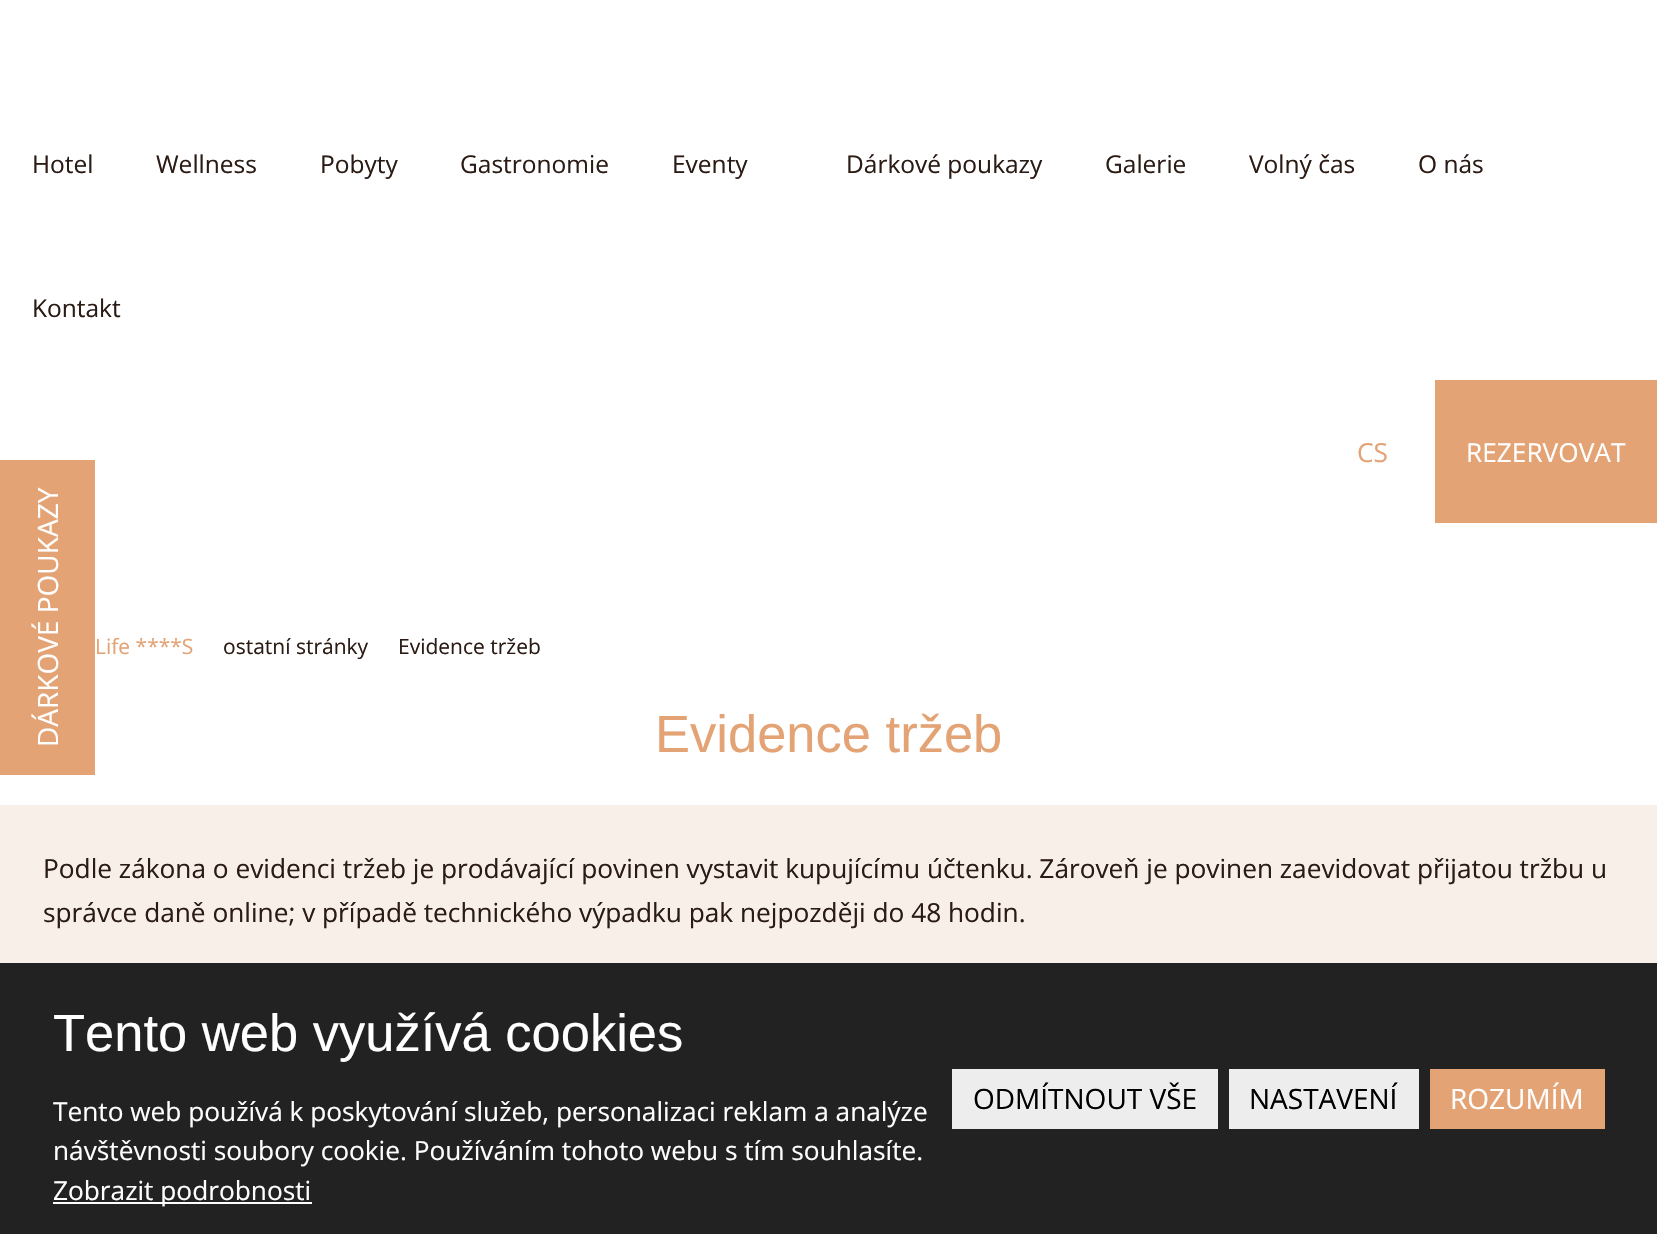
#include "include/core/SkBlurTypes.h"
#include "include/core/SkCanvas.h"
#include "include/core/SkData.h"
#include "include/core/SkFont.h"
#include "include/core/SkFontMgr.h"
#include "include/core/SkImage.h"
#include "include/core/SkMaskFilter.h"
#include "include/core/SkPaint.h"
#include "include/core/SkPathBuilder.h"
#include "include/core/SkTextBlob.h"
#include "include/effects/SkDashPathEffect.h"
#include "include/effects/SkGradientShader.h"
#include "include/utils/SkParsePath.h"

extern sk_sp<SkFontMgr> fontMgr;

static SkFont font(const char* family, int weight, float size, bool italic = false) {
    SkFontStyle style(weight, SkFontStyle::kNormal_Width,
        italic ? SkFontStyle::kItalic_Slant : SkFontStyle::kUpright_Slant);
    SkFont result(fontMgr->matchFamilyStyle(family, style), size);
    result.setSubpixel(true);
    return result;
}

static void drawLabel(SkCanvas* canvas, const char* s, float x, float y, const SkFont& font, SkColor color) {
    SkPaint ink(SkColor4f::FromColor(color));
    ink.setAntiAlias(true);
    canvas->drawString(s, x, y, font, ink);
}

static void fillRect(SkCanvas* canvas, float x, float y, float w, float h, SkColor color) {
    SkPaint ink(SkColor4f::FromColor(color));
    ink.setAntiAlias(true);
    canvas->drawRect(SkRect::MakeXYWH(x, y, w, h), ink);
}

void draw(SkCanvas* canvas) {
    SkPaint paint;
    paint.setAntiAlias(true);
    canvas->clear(0xFFFFFFFF);
    SkFont font1 = font("Open Sans", 400, 24.5f);
    drawLabel(canvas, "Hotel", 32, 173, font1, 0xFF2B1B15);
    drawLabel(canvas, "Wellness", 156, 173, font1, 0xFF2B1B15);
    drawLabel(canvas, "Pobyty", 320, 173, font1, 0xFF2B1B15);
    drawLabel(canvas, "Gastronomie", 460, 173, font1, 0xFF2B1B15);
    drawLabel(canvas, "Eventy", 672, 173, font1, 0xFF2B1B15);
    drawLabel(canvas, "Dárkové poukazy", 846, 173, font1, 0xFF2B1B15);
    drawLabel(canvas, "Galerie", 1105, 173, font1, 0xFF2B1B15);
    drawLabel(canvas, "Volný čas", 1249, 173, font1, 0xFF2B1B15);
    drawLabel(canvas, "O nás", 1418, 173, font1, 0xFF2B1B15);
    drawLabel(canvas, "Kontakt", 32, 317, font1, 0xFF2B1B15);
    SkFont font2 = font("Open Sans", 400, 26.25f);
    drawLabel(canvas, "CS", 1357, 462, font2, 0xFFE3A375);
    fillRect(canvas, 1435, 380, 222, 143, 0xFFE3A375);
    drawLabel(canvas, "REZERVOVAT", 1466, 462, font2, 0xFFFFFFFF);
    fillRect(canvas, 0, 460, 95, 315, 0xFFE3A375);
    SkFont font3 = font("Open Sans", 400, 28);
    canvas->save();
    canvas->rotate(-90, 58, 747);
    drawLabel(canvas, "DÁRKOVÉ POUKAZY", 58, 747, font3, 0xFFFFFFFF);
    canvas->restore();
    SkFont font4 = font("Open Sans", 400, 21);
    drawLabel(canvas, "Life ****S", 95, 654, font4, 0xFFE3A375);
    drawLabel(canvas, "ostatní stránky", 223, 654, font4, 0xFF2B1B15);
    drawLabel(canvas, "Evidence tržeb", 398, 654, font4, 0xFF2B1B15);
    SkFont font5 = font("Liberation Sans", 400, 52.5f);
    drawLabel(canvas, "Evidence tržeb", 655, 752, font5, 0xFFE3A375);
    fillRect(canvas, 0, 805, 1657, 158, 0xFFF8EFE9);
    drawLabel(canvas, "Podle zákona o evidenci tržeb je prodávající povinen vystavit kupujícímu účtenku. Zároveň je povinen zaevidovat přijatou tržbu u", 43, 878, font2, 0xFF2B1B15);
    drawLabel(canvas, "správce daně online; v případě technického výpadku pak nejpozději do 48 hodin.", 43, 922, font2, 0xFF2B1B15);
    fillRect(canvas, 0, 963, 1657, 271, 0xFF222222);
    drawLabel(canvas, "Tento web využívá cookies", 53, 1051, font5, 0xFFFFFFFF);
    drawLabel(canvas, "Tento web používá k poskytování služeb, personalizaci reklam a analýze", 53, 1121, font2, 0xFFFFFFFF);
    drawLabel(canvas, "návštěvnosti soubory cookie. Používáním tohoto webu s tím souhlasíte.", 53, 1160, font2, 0xFFFFFFFF);
    fillRect(canvas, 53, 1202, 259, 2, 0xFFFFFFFF);
    drawLabel(canvas, "Zobrazit podrobnosti", 53, 1200, font2, 0xFFFFFFFF);
    fillRect(canvas, 952, 1069, 266, 60, 0xFFEDEDED);
    drawLabel(canvas, "ODMÍTNOUT VŠE", 973, 1109, font3, 0xFF000000);
    fillRect(canvas, 1229, 1069, 190, 60, 0xFFEDEDED);
    drawLabel(canvas, "NASTAVENÍ", 1249, 1109, font3, 0xFF000000);
    fillRect(canvas, 1430, 1069, 175, 60, 0xFFE3A375);
    drawLabel(canvas, "ROZUMÍM", 1450, 1109, font3, 0xFFFFFFFF);
}
